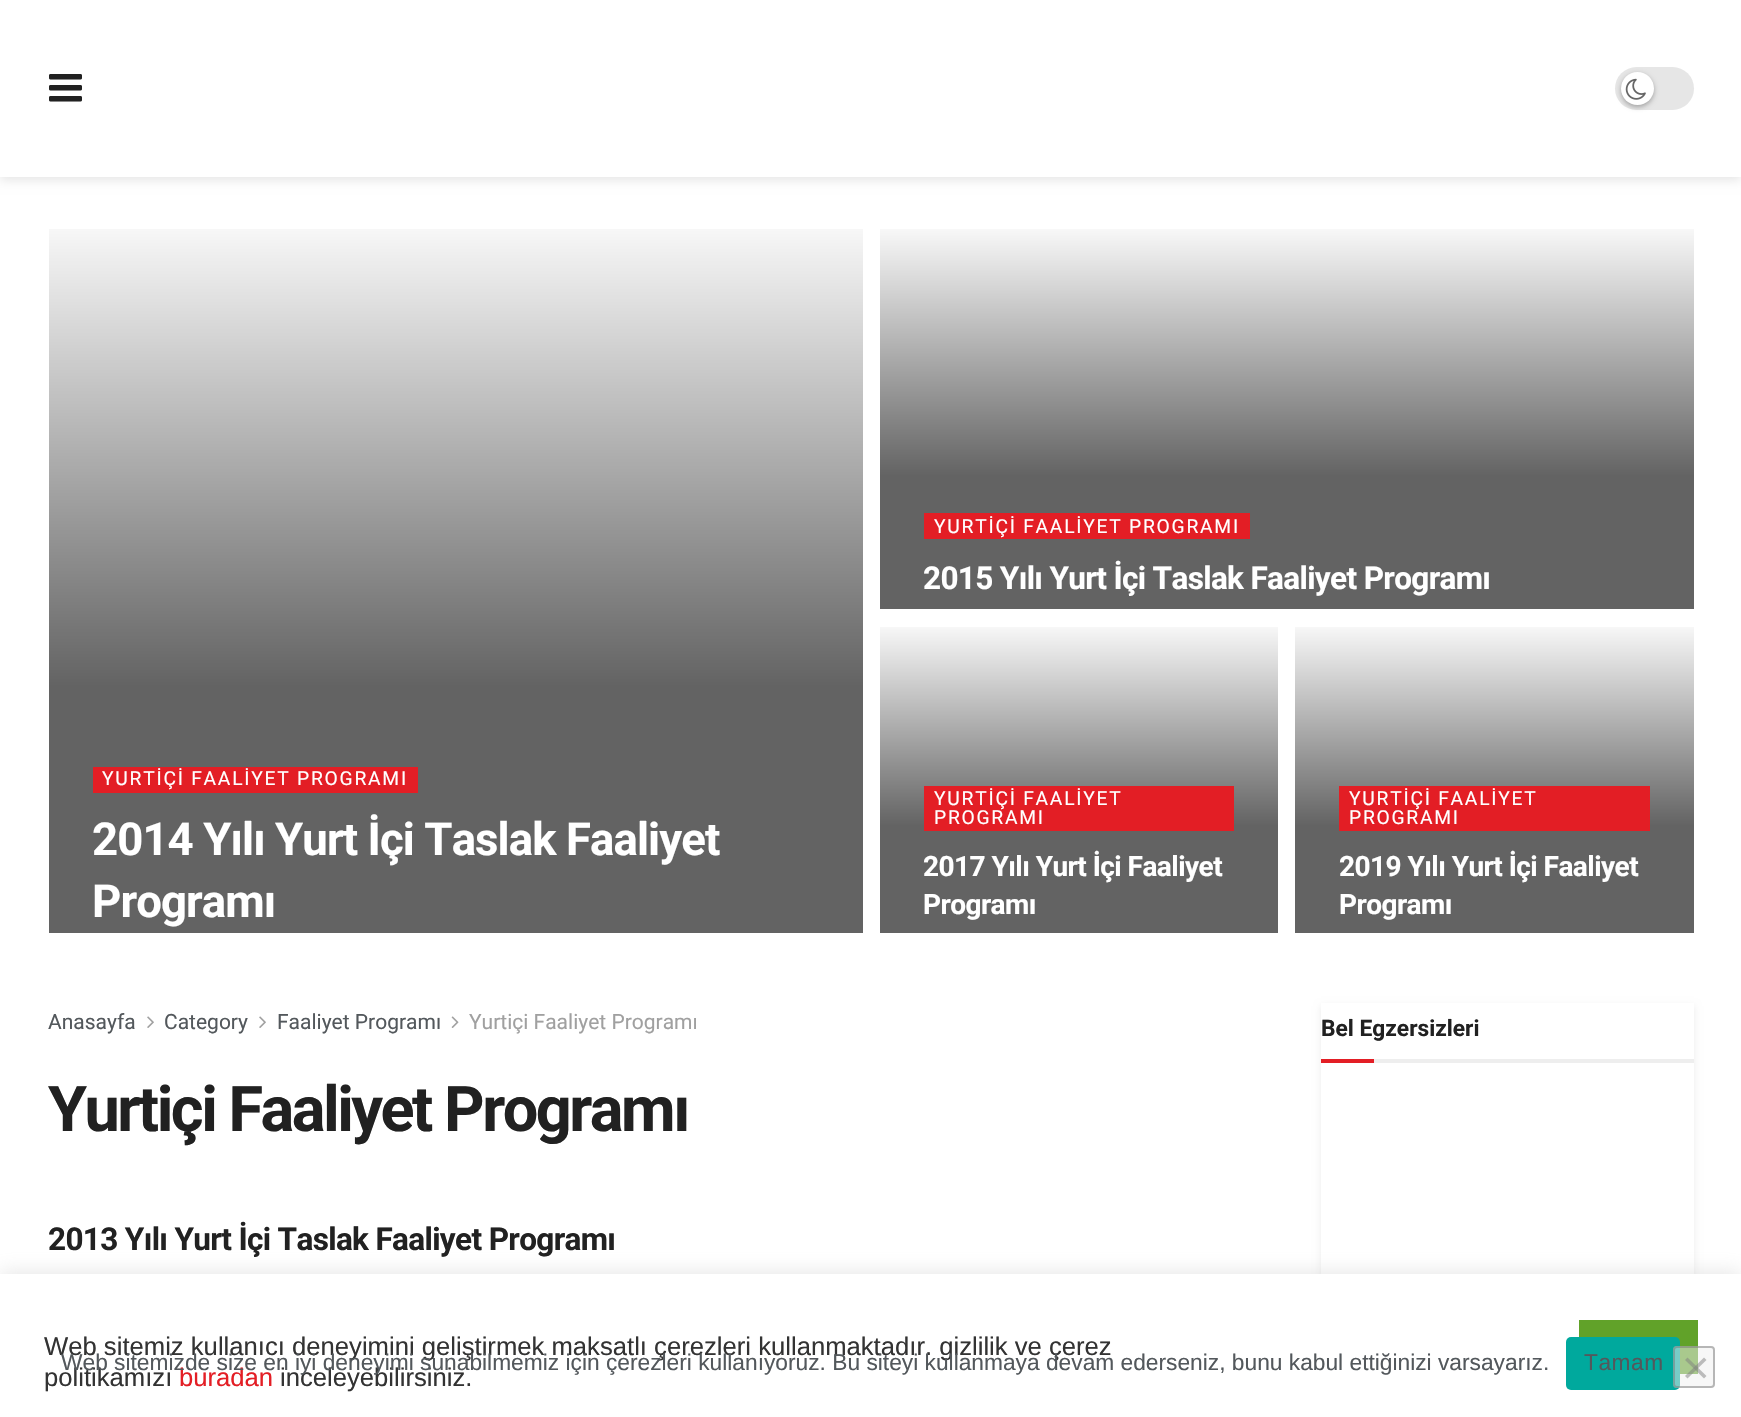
#include "include/core/SkBlurTypes.h"
#include "include/core/SkCanvas.h"
#include "include/core/SkData.h"
#include "include/core/SkFont.h"
#include "include/core/SkFontMgr.h"
#include "include/core/SkImage.h"
#include "include/core/SkMaskFilter.h"
#include "include/core/SkPaint.h"
#include "include/core/SkPathBuilder.h"
#include "include/core/SkTextBlob.h"
#include "include/effects/SkDashPathEffect.h"
#include "include/effects/SkGradientShader.h"
#include "include/utils/SkParsePath.h"

extern sk_sp<SkFontMgr> fontMgr;

static SkFont font(const char* family, int weight, float size, bool italic = false) {
    SkFontStyle style(weight, SkFontStyle::kNormal_Width,
        italic ? SkFontStyle::kItalic_Slant : SkFontStyle::kUpright_Slant);
    SkFont result(fontMgr->matchFamilyStyle(family, style), size);
    result.setSubpixel(true);
    return result;
}

static void drawLabel(SkCanvas* canvas, const char* s, float x, float y, const SkFont& font, SkColor color) {
    SkPaint ink(SkColor4f::FromColor(color));
    ink.setAntiAlias(true);
    canvas->drawString(s, x, y, font, ink);
}

static void drawTracked(SkCanvas* canvas, const char* s, float x, float y, const SkFont& font, const SkPaint& ink, float letter, float word) {
    std::vector<SkGlyphID> glyphs(font.countText(s, strlen(s), SkTextEncoding::kUTF8));
    std::vector<float> xs(glyphs.size());
    font.textToGlyphs(s, strlen(s), SkTextEncoding::kUTF8, glyphs);
    font.getXPos(glyphs, xs, x);
    float extra = 0;
    for (size_t i = 0; i < glyphs.size(); i++) {
        xs[i] += extra;
        extra += letter + word * (glyphs[i] == font.unicharToGlyph(' '));
    }
    canvas->drawTextBlob(SkTextBlob::MakeFromPosHGlyphs(glyphs, xs, y, font), 0, 0, ink);
}

static void fillRect(SkCanvas* canvas, float x, float y, float w, float h, SkColor color) {
    SkPaint ink(SkColor4f::FromColor(color));
    ink.setAntiAlias(true);
    canvas->drawRect(SkRect::MakeXYWH(x, y, w, h), ink);
}

static void fillRRect(SkCanvas* canvas, float x, float y, float w, float h, float radius, SkColor color) {
    SkPaint ink(SkColor4f::FromColor(color));
    ink.setAntiAlias(true);
    canvas->drawRoundRect(SkRect::MakeXYWH(x, y, w, h), radius, radius, ink);
}

static void drawPhoto(SkCanvas* canvas, const char* path, float x, float y, float w, float h) {
    auto image = SkImages::DeferredFromEncodedData(SkData::MakeFromFileName(path));
    canvas->drawImageRect(image, SkRect::MakeXYWH(x, y, w, h), SkSamplingOptions());
}

static SkPath parsePath(const char* data, bool evenOdd = false) {
    SkPath result = *SkParsePath::FromSVGString(data);
    if (evenOdd) result.setFillType(SkPathFillType::kEvenOdd);
    return result;
}

void draw(SkCanvas* canvas) {
    SkPaint paint;
    paint.setAntiAlias(true);
    canvas->clear(0xFFFFFFFF);
    paint.setColor(0x1A000000);
    paint.setMaskFilter(SkMaskFilter::MakeBlur(kNormal_SkBlurStyle, 5));
    canvas->drawRect(SkRect::MakeXYWH(0, 4, 1741, 176), paint);
    paint.setMaskFilter(nullptr);
    fillRect(canvas, 0, 0, 1741, 177, 0xFFFFFFFF);
    drawPhoto(canvas, "assets/img1.png", 49, 74, 33, 28);
    fillRRect(canvas, 1615, 67, 79, 43, 21.5f, 0xFFE6E6E6);
    paint.setColor(0x4D000000);
    paint.setMaskFilter(SkMaskFilter::MakeBlur(kNormal_SkBlurStyle, 2.5f));
    canvas->drawRoundRect(SkRect::MakeXYWH(1621, 74, 33, 33), 16.5f, 16.5f, paint);
    paint.setMaskFilter(nullptr);
    paint.setColor(0xFFFFFFFF);
    canvas->drawCircle(1637.5f, 88.5f, 16.5f, paint);
    drawPhoto(canvas, "assets/img2.png", 1625, 78, 21, 22);
    {
        const SkColor colors[] = {0xFFF7F7F7, 0xFF636363, 0xFF636363};
        const float stops[] = {0, 0.65f, 1};
        const SkPoint ends[] = {{430, 229}, {430, 933}};
        paint.setShader(SkGradientShader::MakeLinear(ends, colors, stops, 3, SkTileMode::kClamp));
        paint.setAlpha(255);
    }
    canvas->drawRect(SkRect::MakeXYWH(49, 229, 814, 704), paint);
    fillRect(canvas, 93, 767, 325, 26, 0xFFE31E25);
    SkFont font1 = font("Roboto", 400, 19.25f);
    paint.setShader(nullptr);
    paint.setColor(0xFFFFFFFF);
    drawTracked(canvas, "YURTİÇİ FAALİYET PROGRAMI", 102, 785, font1, paint, 1.75f, 0);
    SkFont font2 = font("Roboto", 700, 45.5f);
    drawTracked(canvas, "2014 Yılı Yurt İçi Taslak Faaliyet", 92, 855, font2, paint, -0.9f, 0);
    drawTracked(canvas, "Programı", 92, 917, font2, paint, -0.9f, 0);
    {
        const SkColor colors[] = {0xFFF8F8F8, 0xFF636363, 0xFF636363};
        const float stops[] = {0, 0.65f, 1};
        const SkPoint ends[] = {{1261, 229}, {1261, 609}};
        paint.setShader(SkGradientShader::MakeLinear(ends, colors, stops, 3, SkTileMode::kClamp));
        paint.setAlpha(255);
    }
    canvas->drawRect(SkRect::MakeXYWH(880, 229, 814, 380), paint);
    fillRect(canvas, 924, 513, 326, 26, 0xFFE31E25);
    paint.setShader(nullptr);
    paint.setColor(0xFFFFFFFF);
    drawTracked(canvas, "YURTİÇİ FAALİYET PROGRAMI", 934, 533, font1, paint, 1.75f, 0);
    SkFont font3 = font("Roboto", 700, 31.5f);
    drawTracked(canvas, "2015 Yılı Yurt İçi Taslak Faaliyet Programı", 923, 589, font3, paint, -0.65f, 0);
    {
        const SkColor colors[] = {0xFFF7F7F7, 0xFF636363, 0xFF636363};
        const float stops[] = {0, 0.65f, 1};
        const SkPoint ends[] = {{1053, 627}, {1053, 933}};
        paint.setShader(SkGradientShader::MakeLinear(ends, colors, stops, 3, SkTileMode::kClamp));
        paint.setAlpha(255);
    }
    canvas->drawRect(SkRect::MakeXYWH(880, 627, 398, 306), paint);
    fillRect(canvas, 924, 786, 310, 45, 0xFFE31E25);
    paint.setShader(nullptr);
    paint.setColor(0xFFFFFFFF);
    drawTracked(canvas, "YURTİÇİ FAALİYET", 934, 805, font1, paint, 1.75f, 0);
    drawTracked(canvas, "PROGRAMI", 934, 824, font1, paint, 1.75f, 0);
    SkFont font4 = font("Roboto", 700, 28);
    drawTracked(canvas, "2017 Yılı Yurt İçi Faaliyet", 923, 876, font4, paint, -0.55f, 0);
    drawTracked(canvas, "Programı", 923, 914, font4, paint, -0.55f, 0);
    {
        const SkColor colors[] = {0xFFF7F7F7, 0xFF636363, 0xFF636363};
        const float stops[] = {0, 0.65f, 1};
        const SkPoint ends[] = {{1468, 627}, {1468, 933}};
        paint.setShader(SkGradientShader::MakeLinear(ends, colors, stops, 3, SkTileMode::kClamp));
        paint.setAlpha(255);
    }
    canvas->drawRect(SkRect::MakeXYWH(1295, 627, 399, 306), paint);
    fillRect(canvas, 1339, 786, 311, 45, 0xFFE31E25);
    paint.setShader(nullptr);
    paint.setColor(0xFFFFFFFF);
    drawTracked(canvas, "YURTİÇİ FAALİYET", 1349, 805, font1, paint, 1.75f, 0);
    drawTracked(canvas, "PROGRAMI", 1349, 824, font1, paint, 1.75f, 0);
    drawTracked(canvas, "2019 Yılı Yurt İçi Faaliyet", 1339, 876, font4, paint, -0.55f, 0);
    drawTracked(canvas, "Programı", 1339, 914, font4, paint, -0.55f, 0);
    SkFont font5 = font("Roboto", 400, 21);
    drawLabel(canvas, "Anasayfa", 48, 1029, font5, 0xFF53585C);
    drawPhoto(canvas, "assets/img3.png", 147, 1016, 7, 12);
    drawLabel(canvas, "Category", 164, 1029, font5, 0xFF53585C);
    drawPhoto(canvas, "assets/img3.png", 259, 1016, 7, 12);
    drawLabel(canvas, "Faaliyet Programı", 277, 1029, font5, 0xFF53585C);
    drawPhoto(canvas, "assets/img4.png", 451, 1016, 8, 12);
    drawLabel(canvas, "Yurtiçi Faaliyet Programı", 469, 1029, font5, 0xFFA0A0A0);
    SkFont font6 = font("Roboto", 700, 63);
    paint.setColor(0xFF212121);
    drawTracked(canvas, "Yurtiçi Faaliyet Programı", 48, 1131, font6, paint, -2.5f, 0);
    drawTracked(canvas, "2013 Yılı Yurt İçi Taslak Faaliyet Programı", 48, 1250, font3, paint, -0.65f, 0);
    canvas->save();
    canvas->clipPath(parsePath("M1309 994H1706V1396H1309ZM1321 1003H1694V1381H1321Z", true), true);
    paint.setColor(0x14000000);
    paint.setMaskFilter(SkMaskFilter::MakeBlur(kNormal_SkBlurStyle, 3.5f));
    canvas->drawRect(SkRect::MakeXYWH(1321, 1006, 373, 378), paint);
    paint.setMaskFilter(nullptr);
    canvas->restore();
    fillRect(canvas, 1374, 1059, 320, 4, 0xFFEEEEEE);
    SkFont font7 = font("Roboto", 700, 22.75f);
    drawLabel(canvas, "Bel Egzersizleri", 1321, 1036, font7, 0xFF212121);
    fillRect(canvas, 1321, 1059, 53, 4, 0xFFE31E25);
    paint.setColor(0x4DACABAB);
    paint.setMaskFilter(SkMaskFilter::MakeBlur(kNormal_SkBlurStyle, 9));
    canvas->drawRect(SkRect::MakeXYWH(0, 1272, 1741, 144), paint);
    paint.setMaskFilter(nullptr);
    fillRect(canvas, 0, 1274, 1741, 143, 0xFFFFFFFF);
    SkFont font8 = font("Liberation Sans", 400, 25.65f);
    drawLabel(canvas, "Web sitemiz kullanıcı deneyimini geliştirmek maksatlı çerezleri kullanmaktadır. gizlilik ve çerez", 44, 1355, font8, 0xFF333333);
    drawLabel(canvas, "politikamızı", 44, 1386, font8, 0xFF333333);
    drawLabel(canvas, "buradan", 179, 1386, font8, 0xFFE31E25);
    drawLabel(canvas, "inceleyebilirsiniz.", 280, 1386, font8, 0xFF333333);
    fillRect(canvas, 1579, 1320, 119, 54, 0xFF61A229);
    SkFont font9 = font("Liberation Sans", 400, 22.75f);
    drawLabel(canvas, "Web sitemizde size en iyi deneyimi sunabilmemiz için çerezleri kullanıyoruz. Bu siteyi kullanmaya devam ederseniz, bunu kabul ettiğinizi varsayarız.", 61, 1370, font9, 0xFF53585C);
    fillRRect(canvas, 1566, 1337, 114, 53, 5, 0xFF00A99D);
    paint.setColor(0xFF53585C);
    drawTracked(canvas, "Tamam", 1584, 1370, font9, paint, 0.5f, 0);
    fillRRect(canvas, 1673, 1346, 42, 42, 4, 0x80EFEFEF);
    paint.setStroke(true);
    paint.setStrokeWidth(2);
    paint.setColor(0x80767676);
    canvas->drawRoundRect(SkRect::MakeXYWH(1674, 1347, 40, 40), 3, 3, paint);
    paint.setStroke(false);
    paint.setColor(0x80808080);
    canvas->drawPath(parsePath("M1704 1357.5L1706.5 1360L1687.5 1378.5L1685 1376Z"), paint);
    canvas->drawPath(parsePath("M1685 1360L1687.5 1357.5L1706.5 1376L1704 1378.5Z"), paint);
}
